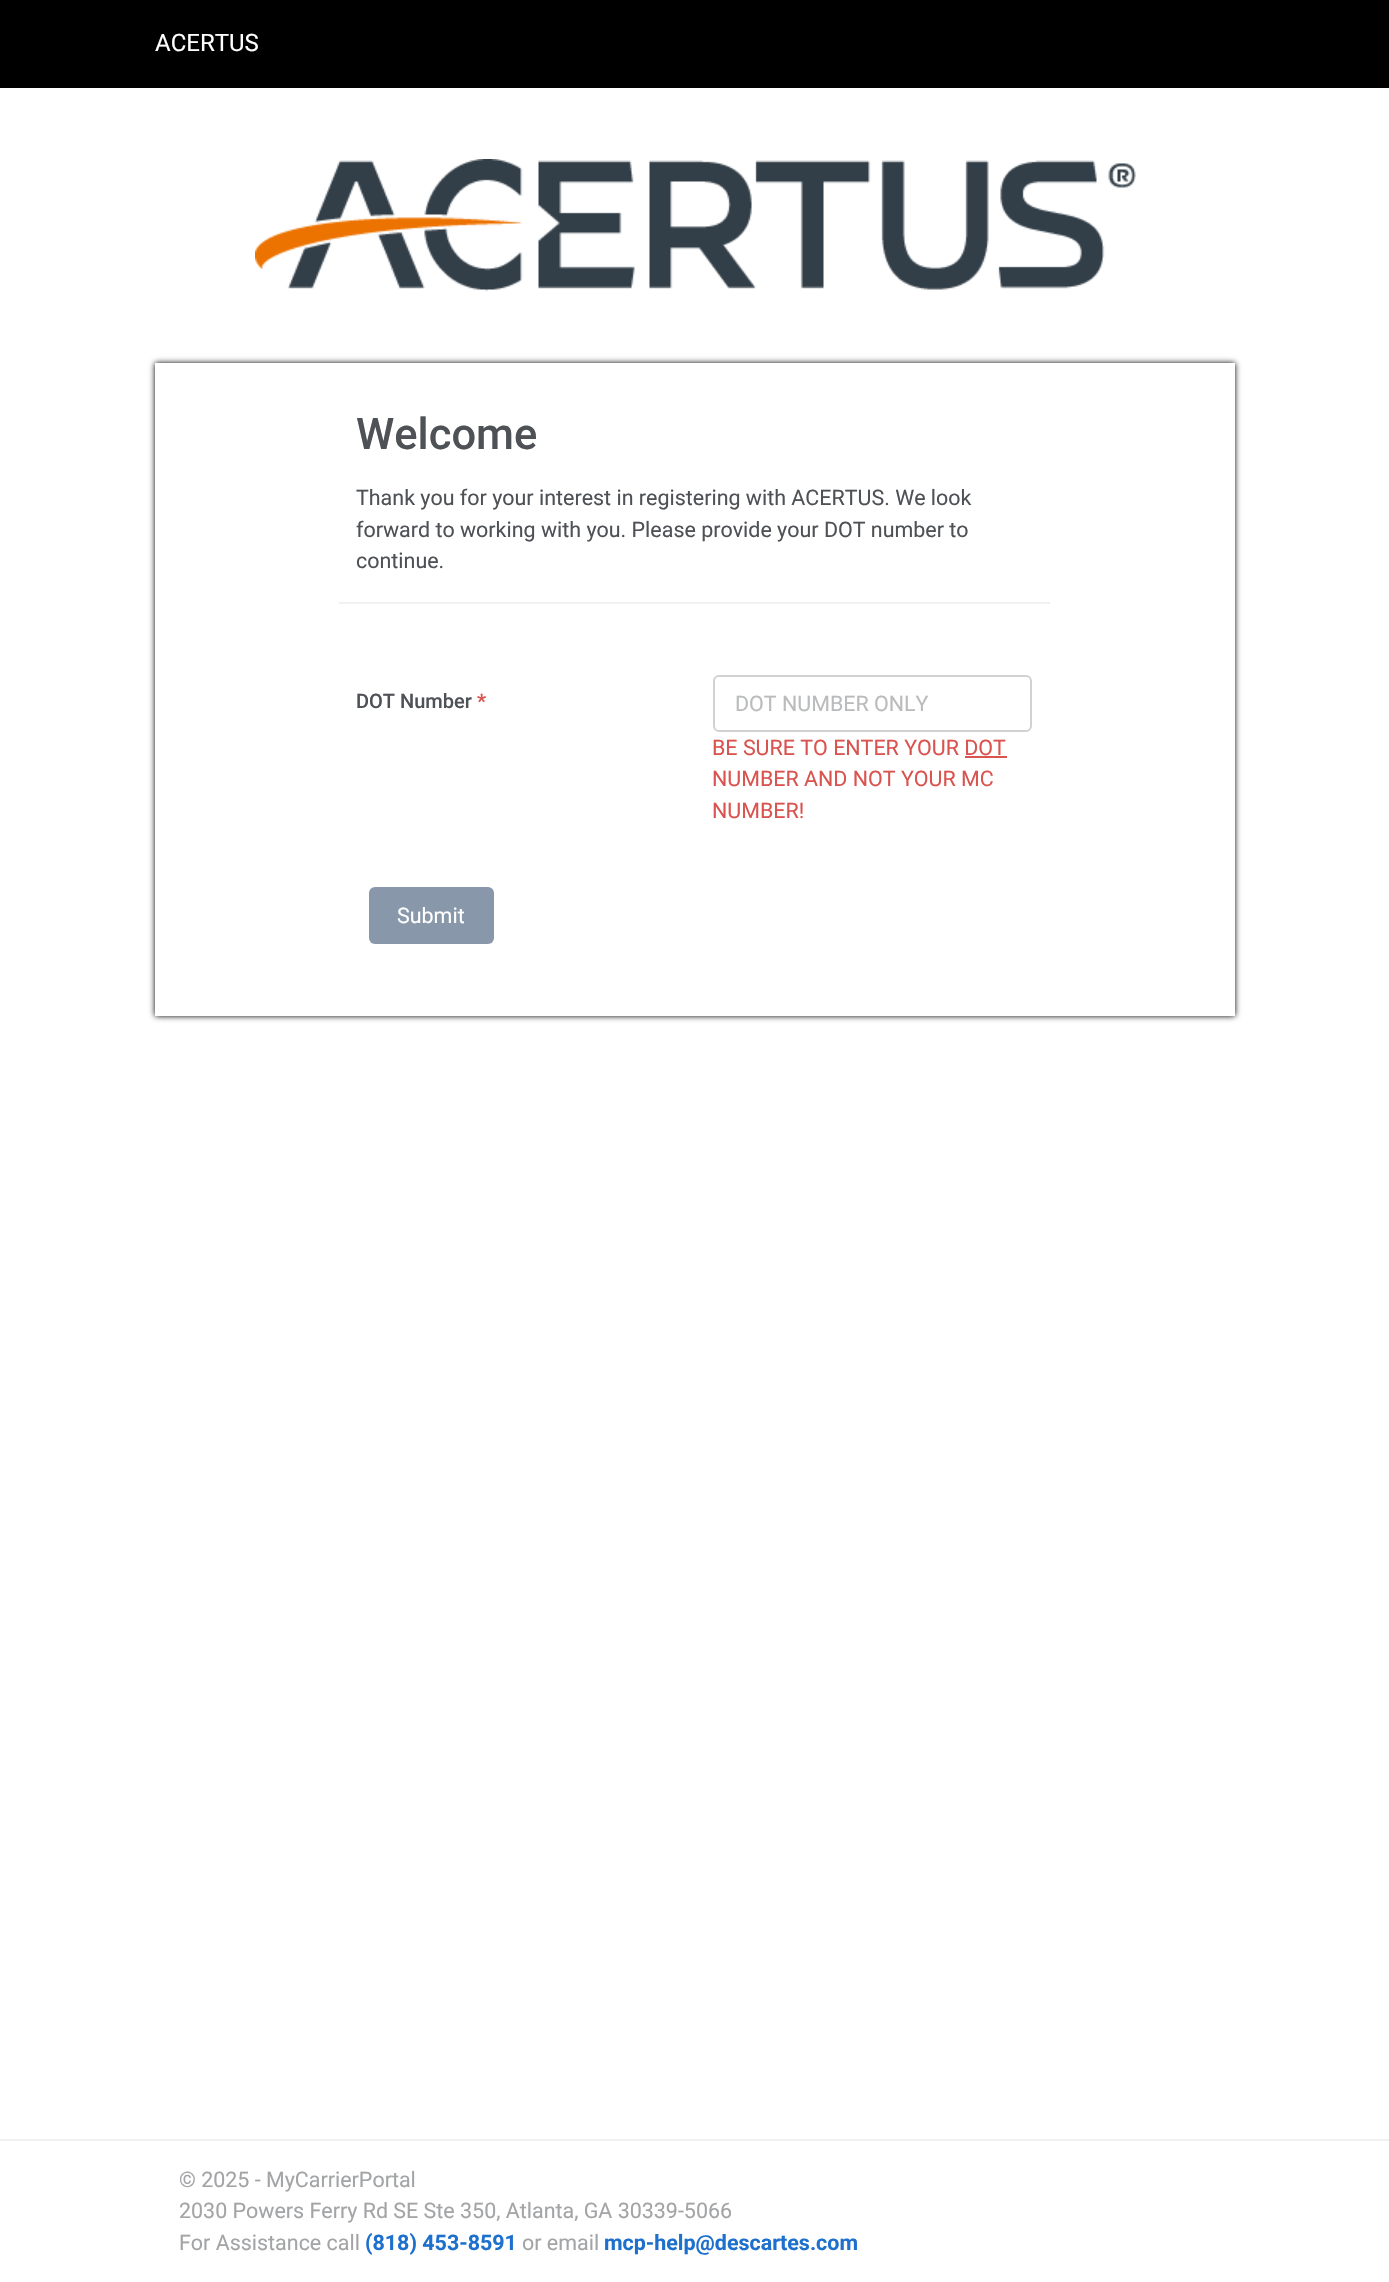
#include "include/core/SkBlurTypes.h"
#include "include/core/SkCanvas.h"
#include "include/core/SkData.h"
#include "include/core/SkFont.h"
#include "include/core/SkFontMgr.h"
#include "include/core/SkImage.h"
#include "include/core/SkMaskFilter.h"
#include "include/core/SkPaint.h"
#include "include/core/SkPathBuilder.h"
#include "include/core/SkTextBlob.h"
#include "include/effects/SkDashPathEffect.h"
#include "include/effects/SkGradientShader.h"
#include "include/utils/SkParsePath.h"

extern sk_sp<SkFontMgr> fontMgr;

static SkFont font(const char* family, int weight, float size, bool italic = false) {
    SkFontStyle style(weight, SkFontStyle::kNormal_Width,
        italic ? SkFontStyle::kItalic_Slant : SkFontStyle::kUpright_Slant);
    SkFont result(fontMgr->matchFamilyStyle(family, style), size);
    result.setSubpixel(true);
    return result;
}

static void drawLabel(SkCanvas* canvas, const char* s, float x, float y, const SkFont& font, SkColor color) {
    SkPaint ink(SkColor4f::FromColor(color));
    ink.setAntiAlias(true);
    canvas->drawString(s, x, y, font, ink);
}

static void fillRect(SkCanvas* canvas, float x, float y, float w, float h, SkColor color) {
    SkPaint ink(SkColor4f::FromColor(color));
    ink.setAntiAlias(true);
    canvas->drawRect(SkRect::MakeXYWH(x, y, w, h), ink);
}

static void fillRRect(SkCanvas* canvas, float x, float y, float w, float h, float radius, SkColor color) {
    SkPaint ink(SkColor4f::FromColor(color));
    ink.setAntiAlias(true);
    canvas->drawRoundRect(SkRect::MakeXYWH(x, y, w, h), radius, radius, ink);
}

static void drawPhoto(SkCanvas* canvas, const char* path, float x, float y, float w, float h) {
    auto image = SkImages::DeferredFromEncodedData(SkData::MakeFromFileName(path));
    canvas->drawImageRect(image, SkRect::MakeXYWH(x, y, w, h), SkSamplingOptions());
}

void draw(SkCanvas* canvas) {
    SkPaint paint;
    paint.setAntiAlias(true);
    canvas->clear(0xFFFFFFFF);
    fillRect(canvas, 0, 0, 1389, 88, 0xFF000000);
    SkFont font1 = font("Roboto", 400, 24);
    drawLabel(canvas, "ACERTUS", 155, 51, font1, 0xFFFFFFFF);
    drawPhoto(canvas, "assets/img1.png", 255, 159, 881, 132);
    paint.setColor(0xFF000000);
    paint.setMaskFilter(SkMaskFilter::MakeBlur(kNormal_SkBlurStyle, 3));
    canvas->drawRect(SkRect::MakeXYWH(155, 363, 1080, 653), paint);
    paint.setMaskFilter(nullptr);
    fillRect(canvas, 155, 363, 1080, 653, 0xFFFFFFFF);
    fillRect(canvas, 339, 602, 711, 2, 0xFFF1F1F2);
    SkFont font2 = font("Roboto", 500, 43.5f);
    drawLabel(canvas, "Welcome", 356, 449, font2, 0xFF4E5155);
    SkFont font3 = font("Roboto", 400, 21.45f);
    drawLabel(canvas, "Thank you for your interest in registering with ACERTUS. We look", 356, 505, font3, 0xFF4E5155);
    drawLabel(canvas, "forward to working with you. Please provide your DOT number to", 356, 537, font3, 0xFF4E5155);
    drawLabel(canvas, "continue.", 356, 568, font3, 0xFF4E5155);
    SkFont font4 = font("Roboto", 500, 20);
    drawLabel(canvas, "DOT Number", 356, 708, font4, 0xFF4E5155);
    SkFont font5 = font("Roboto", 700, 20);
    drawLabel(canvas, "*", 477, 708, font5, 0xFFD9534F);
    paint.setStroke(true);
    paint.setStrokeWidth(2);
    paint.setColor(0xFFD1D2D3);
    canvas->drawRoundRect(SkRect::MakeXYWH(714, 676, 317, 55), 5, 5, paint);
    drawLabel(canvas, "DOT NUMBER ONLY", 735, 711, font3, 0xFFBABBBC);
    drawLabel(canvas, "BE SURE TO ENTER YOUR DOT", 712, 755, font3, 0xFFD9534F);
    fillRect(canvas, 965, 756, 42, 2, 0xFFD9534F);
    drawLabel(canvas, "NUMBER AND NOT YOUR MC", 712, 786, font3, 0xFFD9534F);
    drawLabel(canvas, "NUMBER!", 712, 818, font3, 0xFFD9534F);
    fillRRect(canvas, 369, 887, 125, 57, 6, 0xFF8897AA);
    drawLabel(canvas, "Submit", 397, 923, font3, 0xFFFFFFFF);
    fillRect(canvas, 0, 2139, 1389, 2, 0xFFF1F1F2);
    drawLabel(canvas, "© 2025 - MyCarrierPortal", 179, 2187, font3, 0xFFA3A4A6);
    drawLabel(canvas, "2030 Powers Ferry Rd SE Ste 350, Atlanta, GA 30339-5066", 179, 2218, font3, 0xFFA3A4A6);
    drawLabel(canvas, "For Assistance call", 179, 2250, font3, 0xFFA3A4A6);
    SkFont font6 = font("Roboto", 700, 21.45f);
    drawLabel(canvas, "(818) 453-8591", 365, 2250, font6, 0xFF1E70CD);
    drawLabel(canvas, "or email", 522, 2250, font3, 0xFFA3A4A6);
    drawLabel(canvas, "mcp-help@descartes.com", 604, 2250, font6, 0xFF1E70CD);
}
